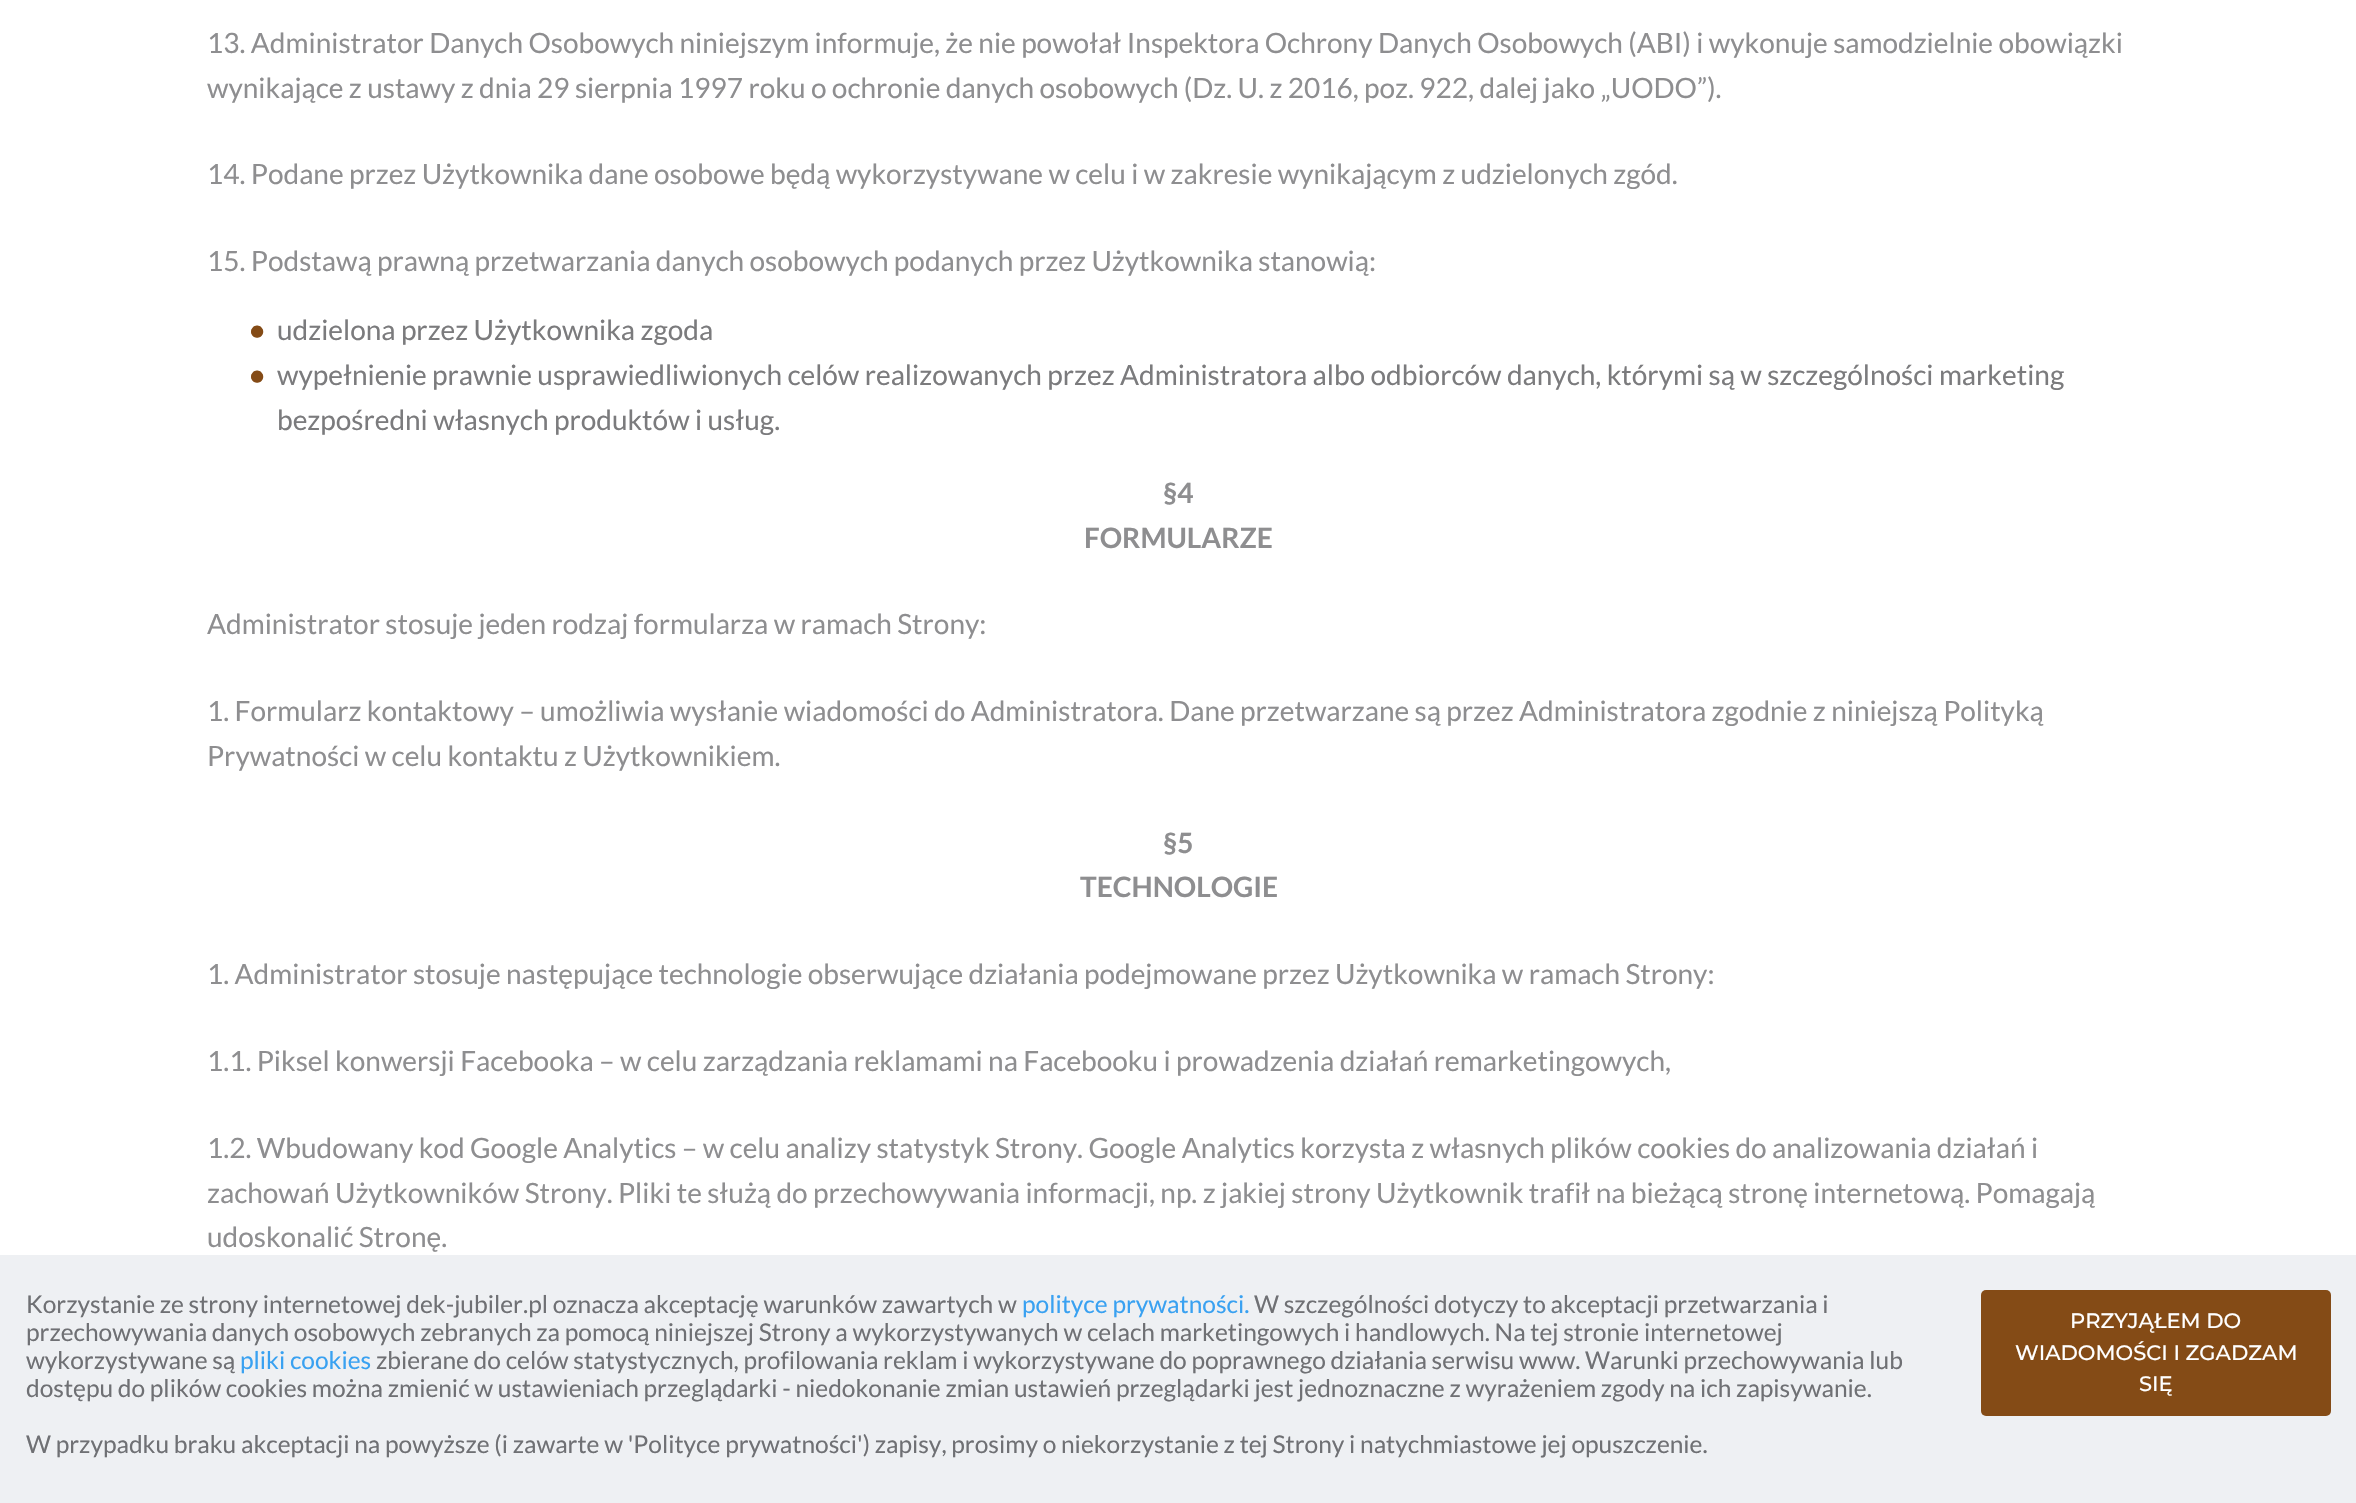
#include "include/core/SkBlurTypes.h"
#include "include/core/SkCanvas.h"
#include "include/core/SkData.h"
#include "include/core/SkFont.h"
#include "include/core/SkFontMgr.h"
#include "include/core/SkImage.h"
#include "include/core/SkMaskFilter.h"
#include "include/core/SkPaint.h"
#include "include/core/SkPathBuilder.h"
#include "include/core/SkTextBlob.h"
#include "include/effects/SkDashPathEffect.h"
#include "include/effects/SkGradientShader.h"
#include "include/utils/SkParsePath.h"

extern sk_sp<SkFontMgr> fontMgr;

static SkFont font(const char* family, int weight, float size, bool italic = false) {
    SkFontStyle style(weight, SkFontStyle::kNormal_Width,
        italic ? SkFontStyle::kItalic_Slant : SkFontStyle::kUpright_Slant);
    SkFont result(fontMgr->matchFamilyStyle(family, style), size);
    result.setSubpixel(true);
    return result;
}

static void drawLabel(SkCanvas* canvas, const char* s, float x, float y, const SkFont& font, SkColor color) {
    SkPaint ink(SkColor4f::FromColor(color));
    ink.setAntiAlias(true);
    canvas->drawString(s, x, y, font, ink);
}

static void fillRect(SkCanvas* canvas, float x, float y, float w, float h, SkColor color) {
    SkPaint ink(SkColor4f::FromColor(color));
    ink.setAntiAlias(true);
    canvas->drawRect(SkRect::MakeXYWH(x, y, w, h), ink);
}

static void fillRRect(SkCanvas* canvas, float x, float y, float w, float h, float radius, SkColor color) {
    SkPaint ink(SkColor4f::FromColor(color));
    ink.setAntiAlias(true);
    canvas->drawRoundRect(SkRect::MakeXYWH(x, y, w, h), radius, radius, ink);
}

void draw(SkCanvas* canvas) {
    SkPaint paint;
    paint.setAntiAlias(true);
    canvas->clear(0xFFFFFFFF);
    SkFont font1 = font("Lato", 400, 28);
    drawLabel(canvas, "13. Administrator Danych Osobowych niniejszym informuje, że nie powołał Inspektora Ochrony Danych Osobowych (ABI) i wykonuje samodzielnie obowiązki", 207, 53, font1, 0xFF8E8E90);
    drawLabel(canvas, "wynikające z ustawy z dnia 29 sierpnia 1997 roku o ochronie danych osobowych (Dz. U. z 2016, poz. 922, dalej jako „UODO”).", 207, 98, font1, 0xFF8E8E90);
    drawLabel(canvas, "14. Podane przez Użytkownika dane osobowe będą wykorzystywane w celu i w zakresie wynikającym z udzielonych zgód.", 207, 184, font1, 0xFF8E8E90);
    drawLabel(canvas, "15. Podstawą prawną przetwarzania danych osobowych podanych przez Użytkownika stanowią:", 207, 271, font1, 0xFF8E8E90);
    SkFont font2 = font("Lato", 700, 28);
    drawLabel(canvas, "•", 249, 340, font2, 0xFF844B16);
    drawLabel(canvas, "udzielona przez Użytkownika zgoda", 277, 340, font1, 0xFF7B7B7D);
    drawLabel(canvas, "•", 249, 385, font2, 0xFF844B16);
    drawLabel(canvas, "wypełnienie prawnie usprawiedliwionych celów realizowanych przez Administratora albo odbiorców danych, którymi są w szczególności marketing", 277, 385, font1, 0xFF7B7B7D);
    drawLabel(canvas, "bezpośredni własnych produktów i usług.", 277, 430, font1, 0xFF7B7B7D);
    drawLabel(canvas, "§4", 1163, 503, font2, 0xFF8E8E90);
    drawLabel(canvas, "FORMULARZE", 1084, 548, font2, 0xFF8E8E90);
    drawLabel(canvas, "Administrator stosuje jeden rodzaj formularza w ramach Strony:", 207, 634, font1, 0xFF8E8E90);
    drawLabel(canvas, "1. Formularz kontaktowy – umożliwia wysłanie wiadomości do Administratora. Dane przetwarzane są przez Administratora zgodnie z niniejszą Polityką", 207, 721, font1, 0xFF8E8E90);
    drawLabel(canvas, "Prywatności w celu kontaktu z Użytkownikiem.", 207, 766, font1, 0xFF8E8E90);
    drawLabel(canvas, "§5", 1163, 853, font2, 0xFF8E8E90);
    drawLabel(canvas, "TECHNOLOGIE", 1080, 897, font2, 0xFF8E8E90);
    drawLabel(canvas, "1. Administrator stosuje następujące technologie obserwujące działania podejmowane przez Użytkownika w ramach Strony:", 207, 984, font1, 0xFF8E8E90);
    drawLabel(canvas, "1.1. Piksel konwersji Facebooka – w celu zarządzania reklamami na Facebooku i prowadzenia działań remarketingowych,", 207, 1071, font1, 0xFF8E8E90);
    drawLabel(canvas, "1.2. Wbudowany kod Google Analytics – w celu analizy statystyk Strony. Google Analytics korzysta z własnych plików cookies do analizowania działań i", 207, 1158, font1, 0xFF8E8E90);
    drawLabel(canvas, "zachowań Użytkowników Strony. Pliki te służą do przechowywania informacji, np. z jakiej strony Użytkownik trafił na bieżącą stronę internetową. Pomagają", 207, 1203, font1, 0xFF8E8E90);
    drawLabel(canvas, "udoskonalić Stronę.", 207, 1247, font1, 0xFF8E8E90);
    fillRect(canvas, 0, 1255, 2356, 248, 0xFFEEF0F3);
    SkFont font3 = font("Lato", 400, 24.5f);
    drawLabel(canvas, "Korzystanie ze strony internetowej dek-jubiler.pl oznacza akceptację warunków zawartych w", 26, 1313, font3, 0xFF6F7074);
    drawLabel(canvas, "polityce prywatności.", 1022, 1313, font3, 0xFF39A1F1);
    drawLabel(canvas, "W szczególności dotyczy to akceptacji przetwarzania i", 1254, 1313, font3, 0xFF6F7074);
    drawLabel(canvas, "przechowywania danych osobowych zebranych za pomocą niniejszej Strony a wykorzystywanych w celach marketingowych i handlowych. Na tej stronie internetowej", 26, 1341, font3, 0xFF6F7074);
    fillRRect(canvas, 1981, 1290, 350, 126, 5, 0xFF844B16);
    SkFont font4 = font("Montserrat", 500, 21);
    drawLabel(canvas, "PRZYJĄŁEM DO", 2070, 1328, font4, 0xFFFFFFFF);
    drawLabel(canvas, "WIADOMOŚCI I ZGADZAM", 2015, 1360, font4, 0xFFFFFFFF);
    drawLabel(canvas, "SIĘ", 2139, 1391, font4, 0xFFFFFFFF);
    drawLabel(canvas, "wykorzystywane są", 26, 1369, font3, 0xFF6F7074);
    drawLabel(canvas, "pliki cookies", 240, 1369, font3, 0xFF39A1F1);
    drawLabel(canvas, "zbierane do celów statystycznych, profilowania reklam i wykorzystywane do poprawnego działania serwisu www. Warunki przechowywania lub", 376, 1369, font3, 0xFF6F7074);
    drawLabel(canvas, "dostępu do plików cookies można zmienić w ustawieniach przeglądarki - niedokonanie zmian ustawień przeglądarki jest jednoznaczne z wyrażeniem zgody na ich zapisywanie.", 26, 1397, font3, 0xFF6F7074);
    drawLabel(canvas, "W przypadku braku akceptacji na powyższe (i zawarte w 'Polityce prywatności') zapisy, prosimy o niekorzystanie z tej Strony i natychmiastowe jej opuszczenie.", 26, 1453, font3, 0xFF6F7074);
}
